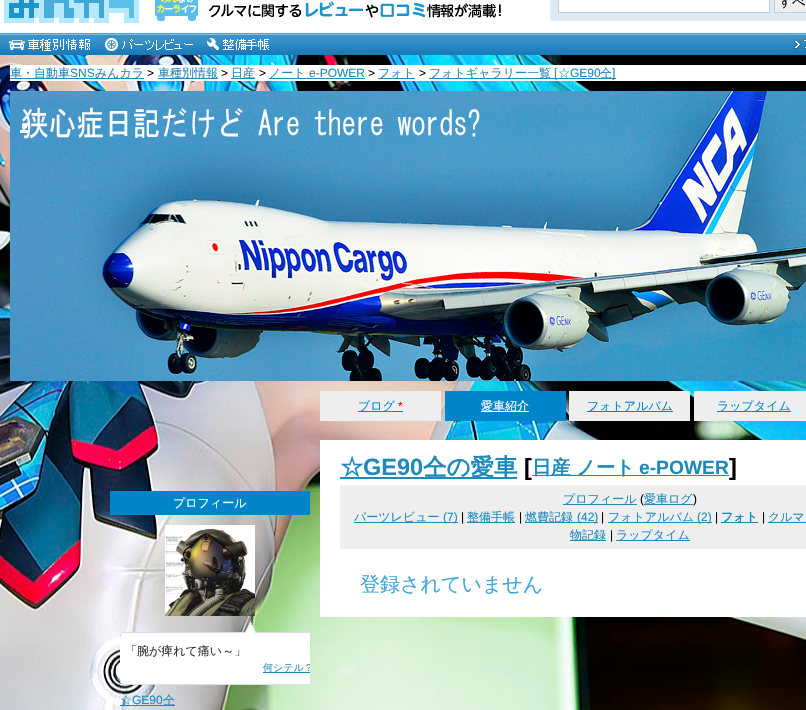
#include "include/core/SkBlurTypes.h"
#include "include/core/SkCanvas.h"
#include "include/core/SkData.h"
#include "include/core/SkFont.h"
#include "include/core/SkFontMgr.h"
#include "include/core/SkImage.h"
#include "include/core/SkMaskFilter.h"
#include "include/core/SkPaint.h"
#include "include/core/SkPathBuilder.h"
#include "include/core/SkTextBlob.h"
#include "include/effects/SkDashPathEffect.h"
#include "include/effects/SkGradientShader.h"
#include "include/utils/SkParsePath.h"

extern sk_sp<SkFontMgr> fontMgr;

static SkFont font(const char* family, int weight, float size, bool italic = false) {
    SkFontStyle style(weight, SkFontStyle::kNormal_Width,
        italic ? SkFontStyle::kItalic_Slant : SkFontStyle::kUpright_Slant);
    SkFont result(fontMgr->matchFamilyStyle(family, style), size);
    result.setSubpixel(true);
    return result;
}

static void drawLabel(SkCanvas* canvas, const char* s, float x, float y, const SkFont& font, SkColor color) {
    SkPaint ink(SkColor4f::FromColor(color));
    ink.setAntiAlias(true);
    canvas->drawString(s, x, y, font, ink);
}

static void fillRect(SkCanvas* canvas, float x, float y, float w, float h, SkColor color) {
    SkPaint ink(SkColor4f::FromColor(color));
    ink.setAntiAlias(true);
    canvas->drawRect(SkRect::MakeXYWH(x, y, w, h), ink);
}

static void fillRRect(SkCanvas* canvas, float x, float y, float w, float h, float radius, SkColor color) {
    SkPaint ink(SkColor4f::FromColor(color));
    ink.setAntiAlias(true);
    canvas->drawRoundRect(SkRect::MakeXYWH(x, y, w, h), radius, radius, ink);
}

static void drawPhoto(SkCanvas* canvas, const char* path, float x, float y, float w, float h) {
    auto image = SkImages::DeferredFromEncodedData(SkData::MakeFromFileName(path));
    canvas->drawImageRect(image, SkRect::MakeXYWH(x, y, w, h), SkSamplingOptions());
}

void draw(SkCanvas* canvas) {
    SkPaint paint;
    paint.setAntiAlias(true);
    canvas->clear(0xFFFFFFFF);
    drawPhoto(canvas, "assets/img1.png", 0, 33, 806, 22);
    drawPhoto(canvas, "assets/img2.png", 4, 0, 135, 23);
    drawPhoto(canvas, "assets/img3.png", 155, 0, 346, 21);
    fillRRect(canvas, 550, -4, 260, 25, 4, 0xFFDCEAF5);
    paint.setColor(0xFFFFFFFF);
    canvas->drawRect(SkRect::MakeXYWH(558.5f, -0.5f, 211, 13), paint);
    paint.setStroke(true);
    paint.setStrokeWidth(1);
    paint.setColor(0xFFBED0DE);
    canvas->drawRect(SkRect::MakeXYWH(558.5f, -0.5f, 211, 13), paint);
    paint.setStroke(false);
    paint.setColor(0xFFEFEFEF);
    canvas->drawRect(SkRect::MakeXYWH(774.5f, -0.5f, 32, 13), paint);
    paint.setStroke(true);
    paint.setColor(0xFFBED0DE);
    canvas->drawRect(SkRect::MakeXYWH(774.5f, -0.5f, 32, 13), paint);
    SkFont font1 = font("WenQuanYi Zen Hei", 500, 13);
    drawLabel(canvas, "すべ", 779, 6, font1, 0xFF000000);
    drawPhoto(canvas, "assets/img4.png", 9, 39, 81, 12);
    drawPhoto(canvas, "assets/img5.png", 105, 38, 88, 13);
    drawPhoto(canvas, "assets/img6.png", 207, 38, 62, 12);
    drawPhoto(canvas, "assets/img7.png", 793, 37, 13, 14);
    drawPhoto(canvas, "assets/img8.png", 0, 55, 806, 655);
    fillRect(canvas, 10, 65, 796, 16, 0xFFFFFFFF);
    fillRect(canvas, 10, 78, 134, 1, 0xFF1E89BB);
    SkFont font2 = font("WenQuanYi Zen Hei", 500, 12);
    drawLabel(canvas, "車・自動車", 10, 77, font2, 0xFF1E89BB);
    SkFont font3 = font("Liberation Sans", 400, 12);
    drawLabel(canvas, "SNS", 70, 77, font3, 0xFF1E89BB);
    drawLabel(canvas, "みんカラ", 95, 77, font2, 0xFF1E89BB);
    drawLabel(canvas, ">", 147, 77, font3, 0xFF000000);
    fillRect(canvas, 158, 78, 60, 1, 0xFF1E89BB);
    drawLabel(canvas, "車種別情報", 158, 77, font2, 0xFF1E89BB);
    drawLabel(canvas, ">", 221, 77, font3, 0xFF000000);
    fillRect(canvas, 231, 78, 24, 1, 0xFF1E89BB);
    drawLabel(canvas, "日産", 231, 77, font2, 0xFF1E89BB);
    drawLabel(canvas, ">", 259, 77, font3, 0xFF000000);
    fillRect(canvas, 269, 78, 96, 1, 0xFF1E89BB);
    drawLabel(canvas, "ノート", 269, 77, font2, 0xFF1E89BB);
    drawLabel(canvas, "e-POWER", 309, 77, font3, 0xFF1E89BB);
    drawLabel(canvas, ">", 368, 77, font3, 0xFF000000);
    fillRect(canvas, 378, 78, 37, 1, 0xFF1E89BB);
    drawLabel(canvas, "フォト", 378, 77, font2, 0xFF1E89BB);
    drawLabel(canvas, ">", 419, 77, font3, 0xFF000000);
    fillRect(canvas, 429, 78, 187, 1, 0xFF1E89BB);
    drawLabel(canvas, "フォトギャラリー一覧", 429, 77, font2, 0xFF1E89BB);
    drawLabel(canvas, "[", 554, 77, font3, 0xFF1E89BB);
    drawLabel(canvas, "☆", 558, 77, font2, 0xFF1E89BB);
    drawLabel(canvas, "GE90", 570, 77, font3, 0xFF1E89BB);
    drawLabel(canvas, "仝", 600, 77, font2, 0xFF1E89BB);
    drawLabel(canvas, "]", 612, 77, font3, 0xFF1E89BB);
    drawPhoto(canvas, "assets/img9.png", 10, 91, 796, 290);
    SkFont font4 = font("Liberation Sans", 700, 32);
    drawLabel(canvas, ".", 20, 128, font4, 0xFFFFFFFF);
    fillRect(canvas, 20, 130, 9, 3, 0xFFFFFFFF);
    fillRect(canvas, 110, 491, 200, 24, 0xFF0085CB);
    drawLabel(canvas, "プロフィール", 173, 507, font2, 0xFFFFFFFF);
    drawPhoto(canvas, "assets/img10.png", 165, 525, 90, 91);
    drawPhoto(canvas, "assets/img11.png", 120, 621, 190, 16);
    fillRect(canvas, 120, 637, 190, 43, 0xFFFFFFFF);
    drawLabel(canvas, "「腕が痺れて痛い～」", 125, 655, font2, 0xFF333333);
    fillRect(canvas, 263, 672, 47, 1, 0xFF1E89BB);
    canvas->save();
    canvas->clipRect(SkRect::MakeXYWH(10, 391, 300, 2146));
    SkFont font5 = font("WenQuanYi Zen Hei", 500, 10);
    drawLabel(canvas, "何シテル？", 263, 671, font5, 0xFF1E89BB);
    canvas->restore();
    drawPhoto(canvas, "assets/img12.png", 120, 680, 190, 5);
    drawLabel(canvas, "☆", 120, 704, font2, 0xFF1E89BB);
    drawLabel(canvas, "GE90", 132, 704, font3, 0xFF1E89BB);
    fillRect(canvas, 120, 705, 55, 1, 0xFF1E89BB);
    drawLabel(canvas, "仝", 163, 704, font2, 0xFF1E89BB);
    fillRect(canvas, 320, 391, 121, 30, 0xFFEEEEEE);
    fillRect(canvas, 358, 411, 45, 1, 0xFF0085CB);
    drawLabel(canvas, "ブログ", 358, 410, font2, 0xFF0085CB);
    drawLabel(canvas, "*", 398, 410, font3, 0xFFFF0000);
    fillRect(canvas, 445, 391, 121, 30, 0xFF0085CB);
    fillRect(canvas, 481, 411, 48, 1, 0xFFFFFFFF);
    drawLabel(canvas, "愛車紹介", 481, 410, font2, 0xFFFFFFFF);
    fillRect(canvas, 569, 391, 121, 30, 0xFFEEEEEE);
    fillRect(canvas, 587, 411, 86, 1, 0xFF0085CB);
    drawLabel(canvas, "フォトアルバム", 587, 410, font2, 0xFF0085CB);
    fillRect(canvas, 694, 391, 112, 30, 0xFFEEEEEE);
    fillRect(canvas, 717, 411, 74, 1, 0xFF0085CB);
    drawLabel(canvas, "ラップタイム", 717, 410, font2, 0xFF0085CB);
    fillRect(canvas, 320, 440, 486, 177, 0xFFFFFFFF);
    SkFont font6 = font("WenQuanYi Zen Hei", 700, 23.5f);
    drawLabel(canvas, "☆", 340, 475, font6, 0xFF1E89BB);
    fillRect(canvas, 340, 477, 177, 2, 0xFF1E89BB);
    SkFont font7 = font("Liberation Sans", 700, 23.5f);
    drawLabel(canvas, "GE90", 363, 475, font7, 0xFF1E89BB);
    drawLabel(canvas, "仝の愛車", 423, 475, font6, 0xFF1E89BB);
    drawLabel(canvas, "[", 524, 475, font7, 0xFF000000);
    drawLabel(canvas, "]", 729, 475, font7, 0xFF000000);
    fillRect(canvas, 532, 475, 197, 1, 0xFF1E89BB);
    SkFont font8 = font("WenQuanYi Zen Hei", 700, 19.25f);
    drawLabel(canvas, "日産 ノート", 532, 474, font8, 0xFF1E89BB);
    SkFont font9 = font("Liberation Sans", 700, 19.25f);
    drawLabel(canvas, "e-POWER", 639, 474, font9, 0xFF1E89BB);
    fillRect(canvas, 340, 485, 466, 64, 0xFFEEEEEE);
    fillRect(canvas, 563, 504, 74, 1, 0xFF1E89BB);
    drawLabel(canvas, "プロフィール", 563, 503, font2, 0xFF1E89BB);
    drawLabel(canvas, "(", 640, 503, font3, 0xFF000000);
    fillRect(canvas, 644, 504, 49, 1, 0xFF1E89BB);
    drawLabel(canvas, "愛車ログ", 644, 503, font2, 0xFF1E89BB);
    drawLabel(canvas, ")", 693, 503, font3, 0xFF000000);
    fillRect(canvas, 354, 522, 104, 1, 0xFF1E89BB);
    drawLabel(canvas, "パーツレビュー", 354, 521, font2, 0xFF1E89BB);
    drawLabel(canvas, "(7)", 443, 521, font3, 0xFF1E89BB);
    drawLabel(canvas, "|", 461, 521, font3, 0xFF000000);
    fillRect(canvas, 467, 522, 48, 1, 0xFF1E89BB);
    drawLabel(canvas, "整備手帳", 467, 521, font2, 0xFF1E89BB);
    drawLabel(canvas, "|", 519, 521, font3, 0xFF000000);
    fillRect(canvas, 525, 522, 73, 1, 0xFF1E89BB);
    drawLabel(canvas, "燃費記録", 525, 521, font2, 0xFF1E89BB);
    drawLabel(canvas, "(42)", 577, 521, font3, 0xFF1E89BB);
    drawLabel(canvas, "|", 601, 521, font3, 0xFF000000);
    fillRect(canvas, 608, 522, 104, 1, 0xFF1E89BB);
    drawLabel(canvas, "フォトアルバム", 608, 521, font2, 0xFF1E89BB);
    drawLabel(canvas, "(2)", 697, 521, font3, 0xFF1E89BB);
    drawLabel(canvas, "|", 715, 521, font3, 0xFF000000);
    fillRect(canvas, 721, 522, 37, 1, 0xFF1E89BB);
    SkFont font10 = font("WenQuanYi Zen Hei", 700, 12);
    drawLabel(canvas, "フォト", 721, 521, font10, 0xFF1E89BB);
    drawLabel(canvas, "|", 762, 521, font3, 0xFF000000);
    fillRect(canvas, 768, 522, 38, 1, 0xFF1E89BB);
    drawLabel(canvas, "クルマ", 768, 521, font2, 0xFF1E89BB);
    fillRect(canvas, 570, 540, 36, 1, 0xFF1E89BB);
    drawLabel(canvas, "物記録", 570, 539, font2, 0xFF1E89BB);
    drawLabel(canvas, "|", 610, 539, font3, 0xFF000000);
    fillRect(canvas, 616, 540, 74, 1, 0xFF1E89BB);
    drawLabel(canvas, "ラップタイム", 616, 539, font2, 0xFF1E89BB);
    SkFont font11 = font("WenQuanYi Zen Hei", 500, 20);
    drawLabel(canvas, "登録されていません", 360, 591, font11, 0xFF41A6D4);
}
